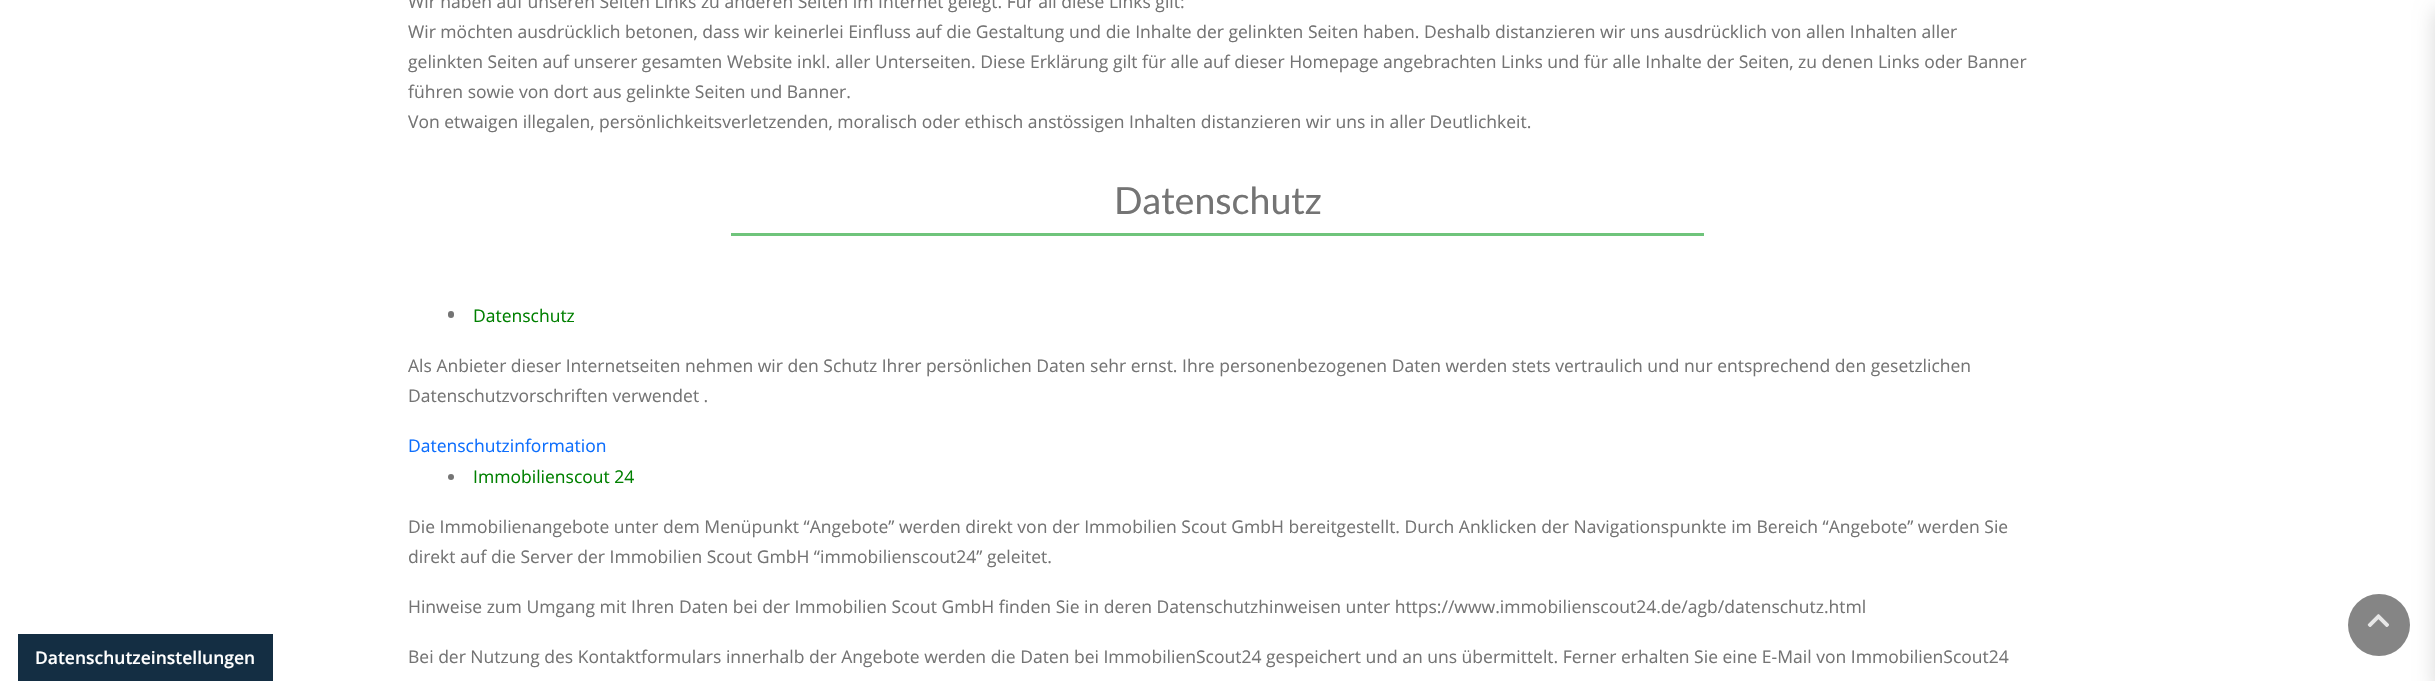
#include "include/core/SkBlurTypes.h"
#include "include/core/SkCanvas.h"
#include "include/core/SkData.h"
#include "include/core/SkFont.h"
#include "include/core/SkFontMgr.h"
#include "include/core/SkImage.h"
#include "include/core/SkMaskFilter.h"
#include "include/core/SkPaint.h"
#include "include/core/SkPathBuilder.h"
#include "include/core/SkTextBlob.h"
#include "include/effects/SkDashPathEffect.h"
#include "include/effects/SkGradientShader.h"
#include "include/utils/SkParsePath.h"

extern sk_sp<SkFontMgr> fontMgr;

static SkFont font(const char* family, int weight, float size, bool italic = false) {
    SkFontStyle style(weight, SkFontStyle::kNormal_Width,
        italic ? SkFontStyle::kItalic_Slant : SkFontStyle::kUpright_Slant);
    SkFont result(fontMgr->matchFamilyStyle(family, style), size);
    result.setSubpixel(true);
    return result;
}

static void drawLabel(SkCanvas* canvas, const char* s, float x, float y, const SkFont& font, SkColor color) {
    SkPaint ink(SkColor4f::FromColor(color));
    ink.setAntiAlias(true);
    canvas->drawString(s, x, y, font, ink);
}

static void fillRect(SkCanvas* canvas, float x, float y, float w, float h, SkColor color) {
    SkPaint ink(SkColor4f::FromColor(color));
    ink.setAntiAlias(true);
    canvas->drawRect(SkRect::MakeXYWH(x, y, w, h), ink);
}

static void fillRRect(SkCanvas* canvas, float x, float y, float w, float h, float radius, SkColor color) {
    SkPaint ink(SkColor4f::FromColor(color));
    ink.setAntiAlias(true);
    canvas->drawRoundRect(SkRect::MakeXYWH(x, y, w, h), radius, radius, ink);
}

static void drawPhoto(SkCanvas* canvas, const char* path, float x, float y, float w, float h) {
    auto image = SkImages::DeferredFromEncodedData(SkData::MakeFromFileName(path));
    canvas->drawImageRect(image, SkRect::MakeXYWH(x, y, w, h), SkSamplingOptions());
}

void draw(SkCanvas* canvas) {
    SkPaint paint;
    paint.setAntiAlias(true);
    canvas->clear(0xFFFFFFFF);
    fillRect(canvas, 18, 634, 255, 47, 0xFF142E43);
    SkFont font1 = font("Open Sans", 600, 17.5f);
    drawLabel(canvas, "Datenschutzeinstellungen", 35, 664, font1, 0xFFFFFFFF);
    SkFont font2 = font("Open Sans", 400, 17.5f);
    drawLabel(canvas, "Wir haben auf unseren Seiten Links zu anderen Seiten im Internet gelegt. Für all diese Links gilt:", 408, 8, font2, 0xFF747474);
    drawLabel(canvas, "Wir möchten ausdrücklich betonen, dass wir keinerlei Einfluss auf die Gestaltung und die Inhalte der gelinkten Seiten haben. Deshalb distanzieren wir uns ausdrücklich von allen Inhalten aller", 408, 38, font2, 0xFF747474);
    drawLabel(canvas, "gelinkten Seiten auf unserer gesamten Website inkl. aller Unterseiten. Diese Erklärung gilt für alle auf dieser Homepage angebrachten Links und für alle Inhalte der Seiten, zu denen Links oder Banner", 408, 68, font2, 0xFF747474);
    drawLabel(canvas, "führen sowie von dort aus gelinkte Seiten und Banner.", 408, 98, font2, 0xFF747474);
    drawLabel(canvas, "Von etwaigen illegalen, persönlichkeitsverletzenden, moralisch oder ethisch anstössigen Inhalten distanzieren wir uns in aller Deutlichkeit.", 408, 128, font2, 0xFF747474);
    SkFont font3 = font("Lato", 400, 37.5f);
    drawLabel(canvas, "Datenschutz", 1114, 214, font3, 0xFF747474);
    fillRect(canvas, 731, 233, 973, 3, 0xFF6FC47B);
    fillRRect(canvas, 448, 311, 6, 7, 3, 0xFF747474);
    drawLabel(canvas, "Datenschutz", 473, 322, font2, 0xFF008000);
    drawLabel(canvas, "Als Anbieter dieser Internetseiten nehmen wir den Schutz Ihrer persönlichen Daten sehr ernst. Ihre personenbezogenen Daten werden stets vertraulich und nur entsprechend den gesetzlichen", 408, 372, font2, 0xFF747474);
    drawLabel(canvas, "Datenschutzvorschriften verwendet .", 408, 402, font2, 0xFF747474);
    drawLabel(canvas, "Datenschutzinformation", 408, 452, font2, 0xFF0D6EFD);
    paint.setColor(0xFF747474);
    canvas->drawCircle(451, 477, 3, paint);
    drawLabel(canvas, "Immobilienscout 24", 473, 483, font2, 0xFF008000);
    drawLabel(canvas, "Die Immobilienangebote unter dem Menüpunkt “Angebote” werden direkt von der Immobilien Scout GmbH bereitgestellt. Durch Anklicken der Navigationspunkte im Bereich “Angebote” werden Sie", 408, 533, font2, 0xFF747474);
    drawLabel(canvas, "direkt auf die Server der Immobilien Scout GmbH “immobilienscout24” geleitet.", 408, 563, font2, 0xFF747474);
    drawLabel(canvas, "Hinweise zum Umgang mit Ihren Daten bei der Immobilien Scout GmbH finden Sie in deren Datenschutzhinweisen unter https://www.immobilienscout24.de/agb/datenschutz.html", 408, 613, font2, 0xFF747474);
    drawLabel(canvas, "Bei der Nutzung des Kontaktformulars innerhalb der Angebote werden die Daten bei ImmobilienScout24 gespeichert und an uns übermittelt. Ferner erhalten Sie eine E-Mail von ImmobilienScout24", 408, 663, font2, 0xFF747474);
    paint.setColor(0x26000000);
    paint.setMaskFilter(SkMaskFilter::MakeBlur(kNormal_SkBlurStyle, 10));
    canvas->drawRect(SkRect::MakeXYWH(2435, 10, 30, 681), paint);
    paint.setMaskFilter(nullptr);
    paint.setColor(0xFF858585);
    canvas->drawCircle(2379, 625, 31, paint);
    drawPhoto(canvas, "assets/img1.png", 2367, 614, 22, 13);
}
